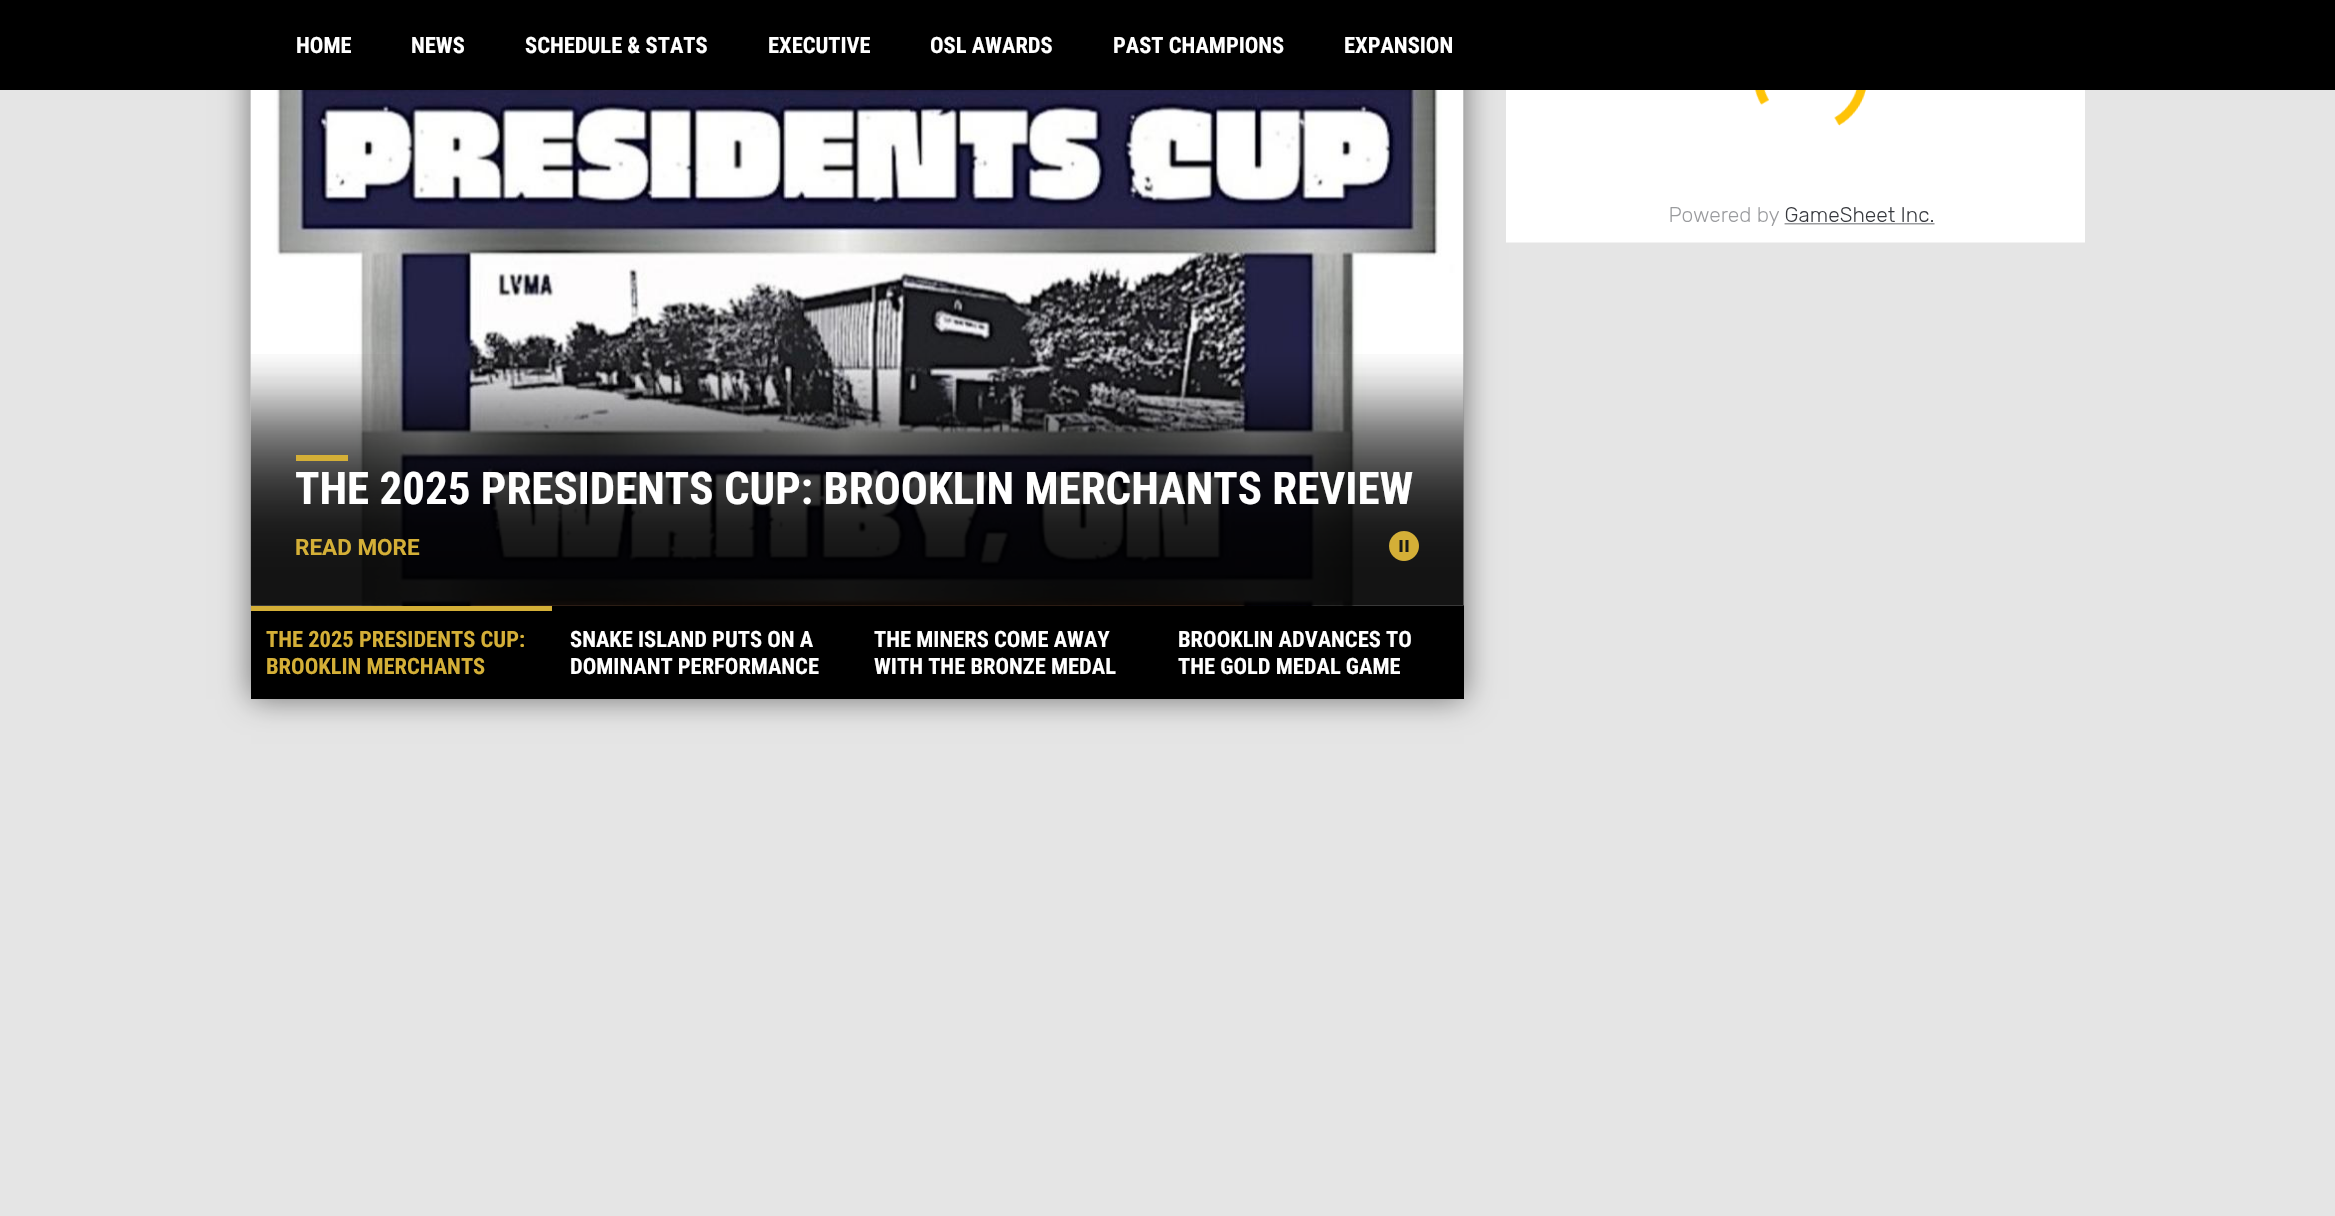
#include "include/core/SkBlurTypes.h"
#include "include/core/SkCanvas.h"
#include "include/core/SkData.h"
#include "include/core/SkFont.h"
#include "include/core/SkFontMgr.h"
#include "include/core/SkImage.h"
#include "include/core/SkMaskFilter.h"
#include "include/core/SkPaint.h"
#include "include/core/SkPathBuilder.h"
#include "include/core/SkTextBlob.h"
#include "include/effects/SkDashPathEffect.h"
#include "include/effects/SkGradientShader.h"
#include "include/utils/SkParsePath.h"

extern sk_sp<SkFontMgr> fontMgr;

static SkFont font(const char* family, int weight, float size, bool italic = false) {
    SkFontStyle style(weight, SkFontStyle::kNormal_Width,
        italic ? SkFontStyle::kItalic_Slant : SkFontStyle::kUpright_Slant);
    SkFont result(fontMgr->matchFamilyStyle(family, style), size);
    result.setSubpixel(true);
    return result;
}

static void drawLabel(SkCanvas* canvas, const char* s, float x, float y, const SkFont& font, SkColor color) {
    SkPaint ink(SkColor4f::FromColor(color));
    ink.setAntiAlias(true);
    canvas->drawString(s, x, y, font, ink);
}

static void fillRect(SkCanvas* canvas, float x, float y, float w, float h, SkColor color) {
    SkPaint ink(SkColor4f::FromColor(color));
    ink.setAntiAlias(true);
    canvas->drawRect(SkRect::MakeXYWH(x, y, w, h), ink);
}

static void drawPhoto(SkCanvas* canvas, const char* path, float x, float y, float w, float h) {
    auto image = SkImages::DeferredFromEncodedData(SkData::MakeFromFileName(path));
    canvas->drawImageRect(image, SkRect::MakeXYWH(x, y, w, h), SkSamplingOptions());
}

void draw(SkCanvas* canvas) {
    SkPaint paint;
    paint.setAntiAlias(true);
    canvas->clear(0xFFE5E5E5);
    paint.setColor(0x80000000);
    paint.setMaskFilter(SkMaskFilter::MakeBlur(kNormal_SkBlurStyle, 15));
    canvas->drawRect(SkRect::MakeXYWH(251, -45, 1213, 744), paint);
    paint.setMaskFilter(nullptr);
    fillRect(canvas, 0, 0, 2335, 90, 0xFF000000);
    SkFont font1 = font("Roboto Condensed", 700, 22.5f);
    drawLabel(canvas, "HOME", 296, 53, font1, 0xFFFFFFFF);
    drawLabel(canvas, "NEWS", 411, 53, font1, 0xFFFFFFFF);
    drawLabel(canvas, "SCHEDULE & STATS", 525, 53, font1, 0xFFFFFFFF);
    drawLabel(canvas, "EXECUTIVE", 768, 53, font1, 0xFFFFFFFF);
    drawLabel(canvas, "OSL AWARDS", 930, 53, font1, 0xFFFFFFFF);
    drawLabel(canvas, "PAST CHAMPIONS", 1113, 53, font1, 0xFFFFFFFF);
    drawLabel(canvas, "EXPANSION", 1344, 53, font1, 0xFFFFFFFF);
    drawPhoto(canvas, "assets/img1.png", 1506, 90, 579, 153);
    fillRect(canvas, 251, 90, 1213, 609, 0xFF000000);
    drawPhoto(canvas, "assets/img2.png", 250, 90, 1214, 516);
    drawPhoto(canvas, "assets/img3.png", 250, 354, 1214, 252);
    fillRect(canvas, 296, 455, 52, 6, 0xFFD4AF37);
    SkFont font2 = font("Roboto Condensed", 700, 45);
    drawLabel(canvas, "THE 2025 PRESIDENTS CUP: BROOKLIN MERCHANTS REVIEW", 295, 504, font2, 0xFFFFFFFF);
    SkFont font3 = font("Roboto", 700, 22.5f);
    drawLabel(canvas, "READ MORE", 295, 555, font3, 0xFFD4AF37);
    drawPhoto(canvas, "assets/img4.png", 1389, 531, 30, 30);
    fillRect(canvas, 251, 606, 301, 5, 0xFFD4AF37);
    drawLabel(canvas, "THE 2025 PRESIDENTS CUP:", 266, 647, font1, 0xFFD4AF37);
    drawLabel(canvas, "BROOKLIN MERCHANTS", 266, 674, font1, 0xFFD4AF37);
    drawLabel(canvas, "SNAKE ISLAND PUTS ON A", 570, 647, font1, 0xFFFFFFFF);
    drawLabel(canvas, "DOMINANT PERFORMANCE", 570, 674, font1, 0xFFFFFFFF);
    drawLabel(canvas, "THE MINERS COME AWAY", 874, 647, font1, 0xFFFFFFFF);
    drawLabel(canvas, "WITH THE BRONZE MEDAL", 874, 674, font1, 0xFFFFFFFF);
    drawLabel(canvas, "BROOKLIN ADVANCES TO", 1178, 647, font1, 0xFFFFFFFF);
    drawLabel(canvas, "THE GOLD MEDAL GAME", 1178, 674, font1, 0xFFFFFFFF);
}
